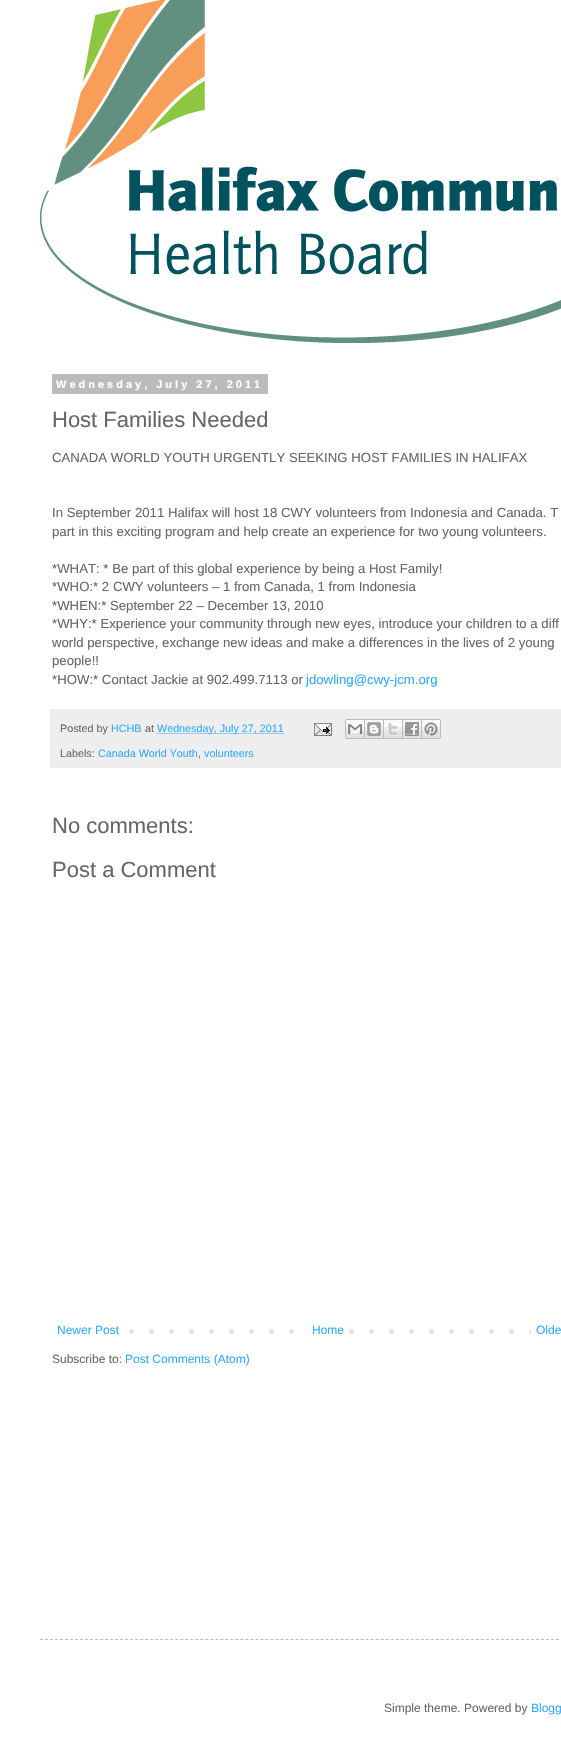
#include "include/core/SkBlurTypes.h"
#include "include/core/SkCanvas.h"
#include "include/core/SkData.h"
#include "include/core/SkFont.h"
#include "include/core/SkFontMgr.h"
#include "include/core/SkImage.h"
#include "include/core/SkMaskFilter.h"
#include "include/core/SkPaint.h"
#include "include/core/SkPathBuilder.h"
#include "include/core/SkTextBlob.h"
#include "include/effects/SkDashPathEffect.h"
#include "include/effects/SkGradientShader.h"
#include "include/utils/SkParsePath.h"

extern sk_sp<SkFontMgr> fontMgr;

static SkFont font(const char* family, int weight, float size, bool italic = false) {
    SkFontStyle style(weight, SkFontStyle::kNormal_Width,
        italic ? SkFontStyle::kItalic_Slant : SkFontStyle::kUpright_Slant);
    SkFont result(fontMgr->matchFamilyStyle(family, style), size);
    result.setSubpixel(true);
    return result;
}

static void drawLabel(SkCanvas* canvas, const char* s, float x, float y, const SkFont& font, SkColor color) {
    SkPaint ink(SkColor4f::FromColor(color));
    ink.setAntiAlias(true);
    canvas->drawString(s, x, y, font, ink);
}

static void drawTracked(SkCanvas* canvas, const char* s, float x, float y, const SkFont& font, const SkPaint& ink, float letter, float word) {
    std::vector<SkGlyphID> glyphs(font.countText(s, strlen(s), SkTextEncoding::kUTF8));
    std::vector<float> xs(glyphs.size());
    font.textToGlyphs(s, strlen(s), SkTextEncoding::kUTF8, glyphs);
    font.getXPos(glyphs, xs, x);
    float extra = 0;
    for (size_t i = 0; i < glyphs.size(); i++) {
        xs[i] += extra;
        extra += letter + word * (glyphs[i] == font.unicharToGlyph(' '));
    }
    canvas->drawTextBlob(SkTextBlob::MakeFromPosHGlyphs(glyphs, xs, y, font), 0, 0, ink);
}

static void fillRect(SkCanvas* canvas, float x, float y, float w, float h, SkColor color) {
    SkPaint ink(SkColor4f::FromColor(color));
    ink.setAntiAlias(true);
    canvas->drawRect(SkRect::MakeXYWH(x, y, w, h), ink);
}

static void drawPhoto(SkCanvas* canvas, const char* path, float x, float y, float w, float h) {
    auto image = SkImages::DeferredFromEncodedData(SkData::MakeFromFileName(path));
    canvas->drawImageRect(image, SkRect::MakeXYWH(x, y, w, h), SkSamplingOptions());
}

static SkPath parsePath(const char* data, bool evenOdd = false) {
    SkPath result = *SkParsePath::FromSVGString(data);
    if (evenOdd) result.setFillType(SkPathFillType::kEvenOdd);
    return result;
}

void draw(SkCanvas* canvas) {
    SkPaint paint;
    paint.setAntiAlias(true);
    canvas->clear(0xFFFFFFFF);
    drawPhoto(canvas, "assets/img1.png", 40, 0, 521, 343);
    fillRect(canvas, 52, 374, 216, 20, 0xFFBBBBBB);
    SkFont font1 = font("Liberation Sans", 700, 11);
    paint.setColor(0xFFFFFFFF);
    drawTracked(canvas, "Wednesday, July 27, 2011", 56, 388, font1, paint, 3, 0);
    SkFont font2 = font("Liberation Sans", 400, 22);
    drawLabel(canvas, "Host Families Needed", 52, 427, font2, 0xFF666666);
    SkFont font3 = font("Liberation Sans", 400, 13.2f);
    drawLabel(canvas, "CANADA WORLD YOUTH URGENTLY SEEKING HOST FAMILIES IN HALIFAX", 52, 462, font3, 0xFF666666);
    drawLabel(canvas, "In September 2011 Halifax will host 18 CWY volunteers from Indonesia and Canada. T", 52, 517, font3, 0xFF666666);
    drawLabel(canvas, "part in this exciting program and help create an experience for two young volunteers.", 52, 536, font3, 0xFF666666);
    drawLabel(canvas, "*WHAT: * Be part of this global experience by being a Host Family!", 52, 573, font3, 0xFF666666);
    drawLabel(canvas, "*WHO:* 2 CWY volunteers – 1 from Canada, 1 from Indonesia", 52, 591, font3, 0xFF666666);
    drawLabel(canvas, "*WHEN:* September 22 – December 13, 2010", 52, 610, font3, 0xFF666666);
    drawLabel(canvas, "*WHY:* Experience your community through new eyes, introduce your children to a diff", 52, 628, font3, 0xFF666666);
    drawLabel(canvas, "world perspective, exchange new ideas and make a differences in the lives of 2 young", 52, 647, font3, 0xFF666666);
    drawLabel(canvas, "people!!", 52, 665, font3, 0xFF666666);
    drawLabel(canvas, "*HOW:* Contact Jackie at 902.499.7113 or", 52, 684, font3, 0xFF666666);
    drawLabel(canvas, "jdowling@cwy-jcm.org", 306, 684, font3, 0xFF33AAFF);
    fillRect(canvas, 50, 709, 511, 59, 0xFFEEEEEE);
    SkFont font4 = font("Liberation Sans", 400, 10.75f);
    drawLabel(canvas, "Posted by", 60, 732, font4, 0xFF666666);
    drawLabel(canvas, "HCHB", 111, 732, font4, 0xFF33AAFF);
    drawLabel(canvas, "at", 145, 732, font4, 0xFF666666);
    paint.setStroke(true);
    paint.setStrokeWidth(1);
    paint.setColor(0xFF33AAFF);
    paint.setPathEffect(SkDashPathEffect::Make({{1, 1}}, 0));
    canvas->drawPath(parsePath("M156.5 733.5H284"), paint);
    paint.setPathEffect(nullptr);
    drawLabel(canvas, "Wednesday, July 27, 2011", 157, 732, font4, 0xFF33AAFF);
    drawPhoto(canvas, "assets/img2.png", 314, 723, 18, 13);
    drawPhoto(canvas, "assets/img3.png", 345, 719, 20, 20);
    drawPhoto(canvas, "assets/img4.png", 365, 719, 19, 20);
    drawPhoto(canvas, "assets/img5.png", 384, 719, 19, 20);
    drawPhoto(canvas, "assets/img6.png", 403, 719, 19, 20);
    drawPhoto(canvas, "assets/img7.png", 422, 719, 19, 20);
    drawLabel(canvas, "Labels:", 60, 757, font4, 0xFF666666);
    drawLabel(canvas, "Canada World Youth", 98, 757, font4, 0xFF33AAFF);
    drawLabel(canvas, ",", 198, 757, font4, 0xFF666666);
    drawLabel(canvas, "volunteers", 204, 757, font4, 0xFF33AAFF);
    drawLabel(canvas, "No comments:", 52, 833, font2, 0xFF666666);
    drawLabel(canvas, "Post a Comment", 52, 877, font2, 0xFF666666);
    drawPhoto(canvas, "assets/img8.png", 129, 1329, 402, 5);
    SkFont font5 = font("Liberation Sans", 400, 12);
    drawLabel(canvas, "Newer Post", 57, 1334, font5, 0xFF33AAFF);
    fillRect(canvas, 309, 1329, 26, 5, 0xFFFFFFFF);
    drawLabel(canvas, "Home", 312, 1334, font5, 0xFF33AAFF);
    drawLabel(canvas, "Olde", 536, 1334, font5, 0xFF33AAFF);
    drawLabel(canvas, "Subscribe to:", 52, 1363, font5, 0xFF666666);
    drawLabel(canvas, "Post Comments (Atom)", 125, 1363, font5, 0xFF33AAFF);
    paint.setColor(0xFFBBBBBB);
    paint.setPathEffect(SkDashPathEffect::Make({{3, 2.01f}}, 0));
    canvas->drawPath(parsePath("M40 1639.5H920"), paint);
    paint.setPathEffect(nullptr);
    drawLabel(canvas, "Simple theme. Powered by", 384, 1712, font5, 0xFF666666);
    drawLabel(canvas, "Blogg", 531, 1712, font5, 0xFF33AAFF);
}
